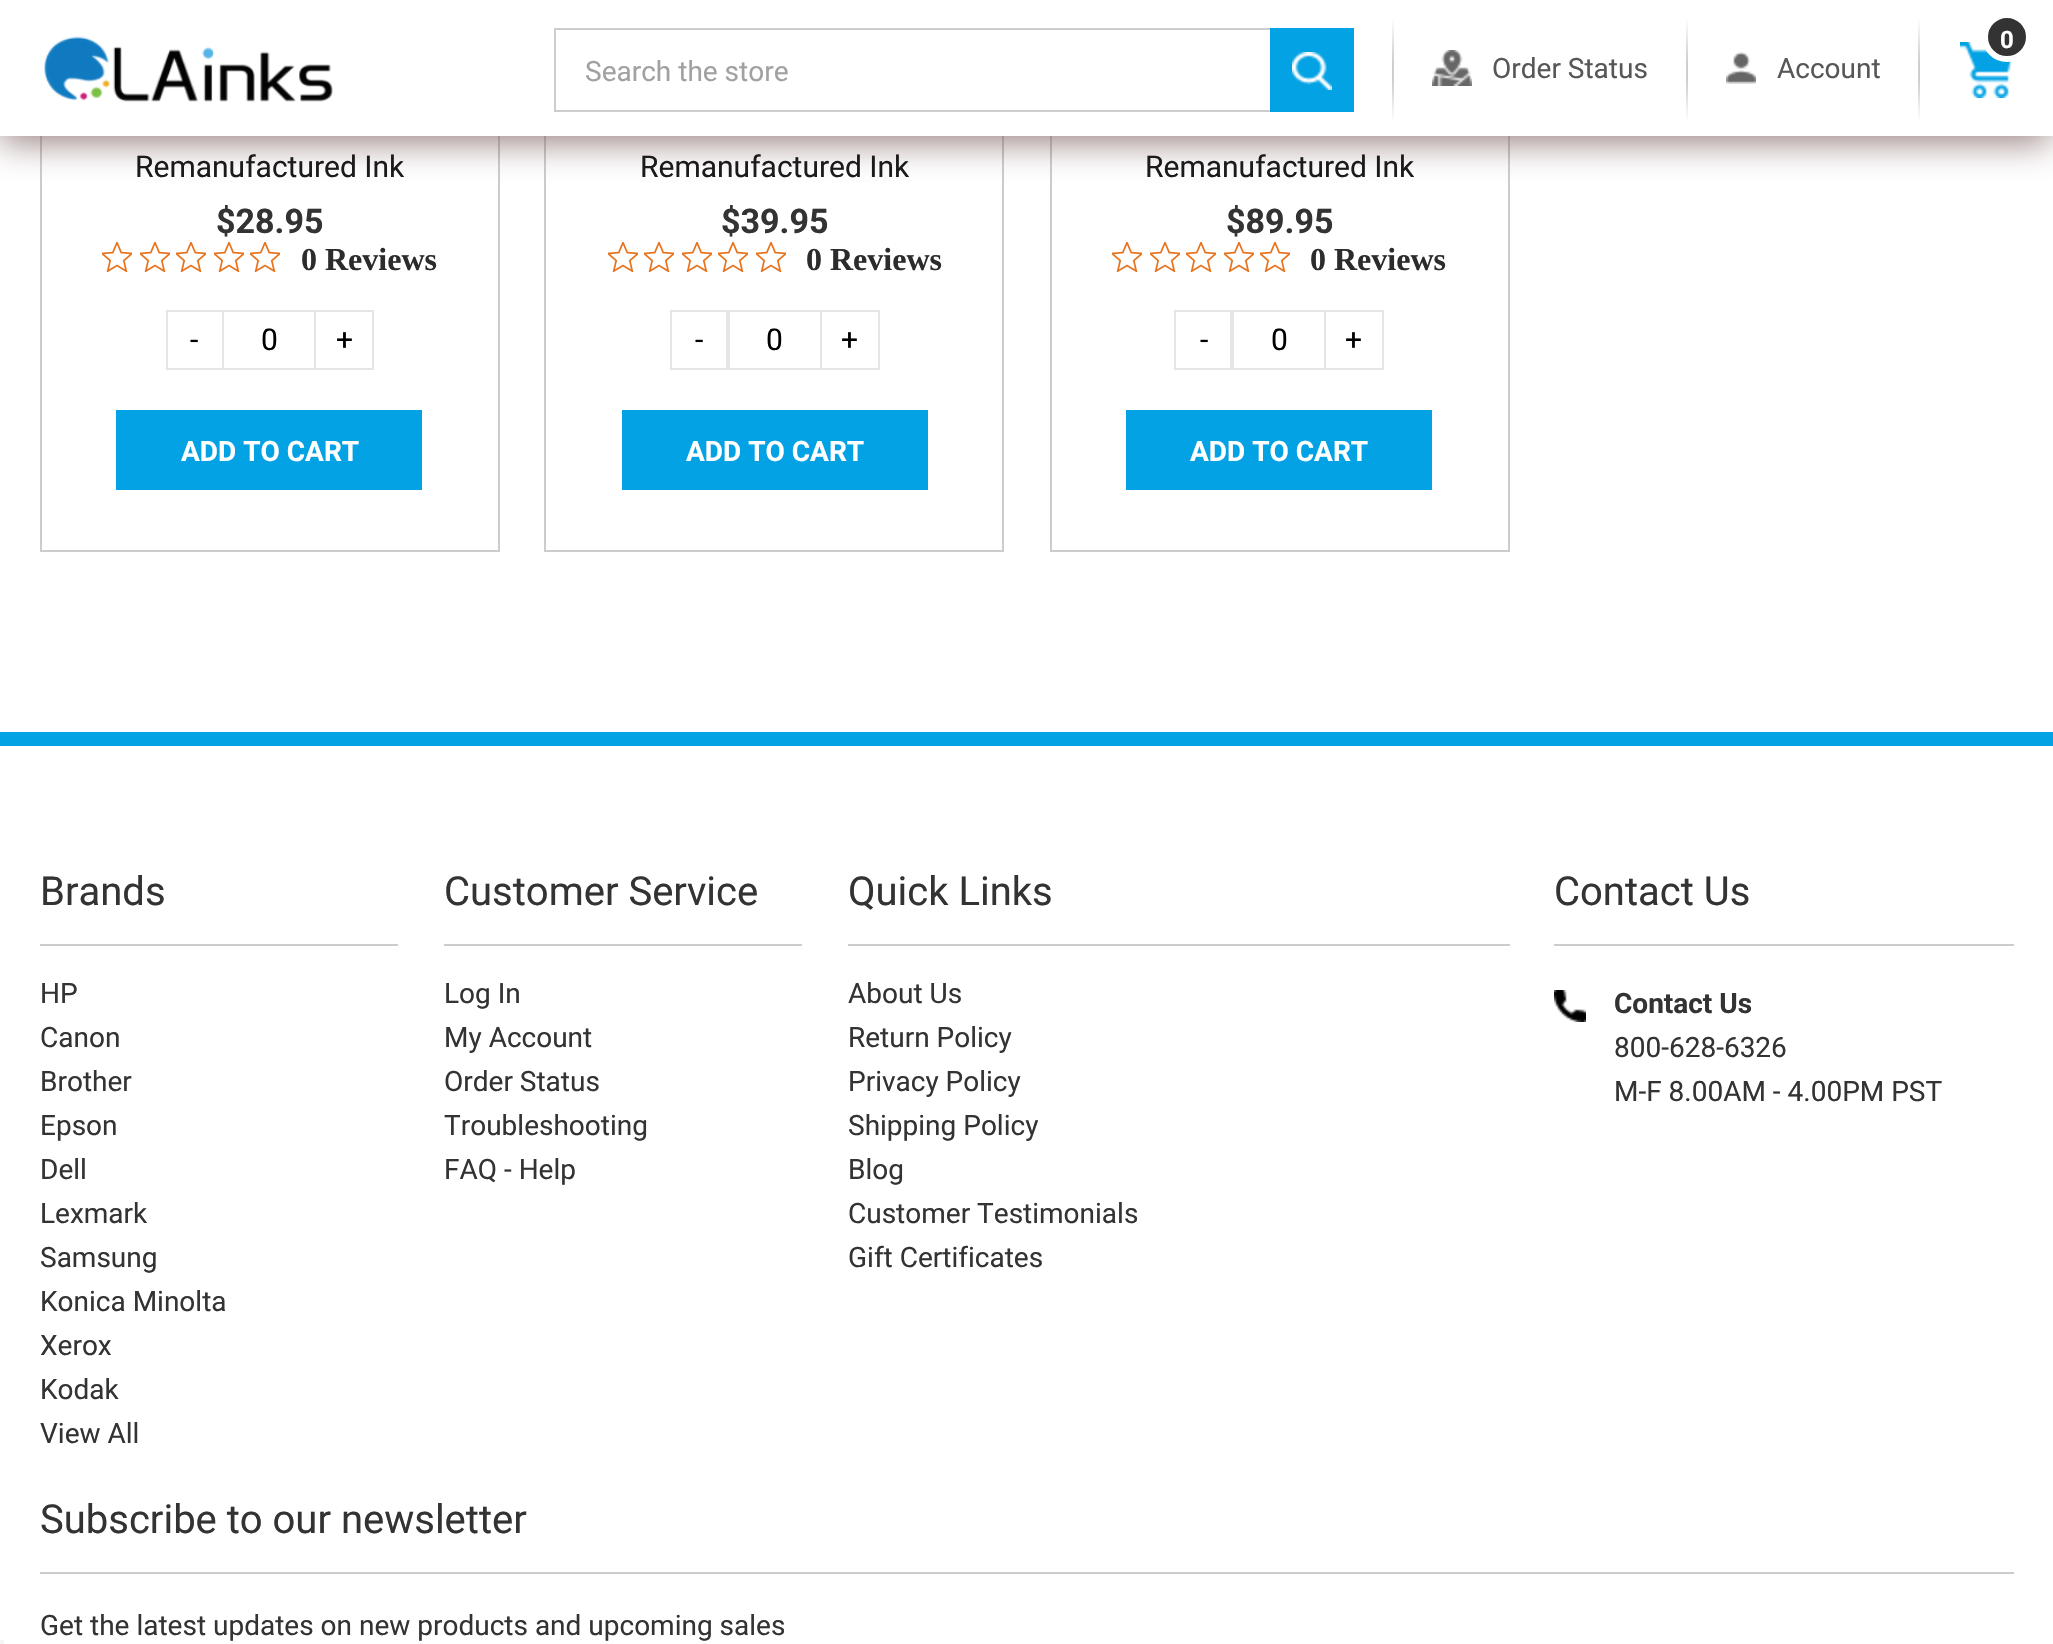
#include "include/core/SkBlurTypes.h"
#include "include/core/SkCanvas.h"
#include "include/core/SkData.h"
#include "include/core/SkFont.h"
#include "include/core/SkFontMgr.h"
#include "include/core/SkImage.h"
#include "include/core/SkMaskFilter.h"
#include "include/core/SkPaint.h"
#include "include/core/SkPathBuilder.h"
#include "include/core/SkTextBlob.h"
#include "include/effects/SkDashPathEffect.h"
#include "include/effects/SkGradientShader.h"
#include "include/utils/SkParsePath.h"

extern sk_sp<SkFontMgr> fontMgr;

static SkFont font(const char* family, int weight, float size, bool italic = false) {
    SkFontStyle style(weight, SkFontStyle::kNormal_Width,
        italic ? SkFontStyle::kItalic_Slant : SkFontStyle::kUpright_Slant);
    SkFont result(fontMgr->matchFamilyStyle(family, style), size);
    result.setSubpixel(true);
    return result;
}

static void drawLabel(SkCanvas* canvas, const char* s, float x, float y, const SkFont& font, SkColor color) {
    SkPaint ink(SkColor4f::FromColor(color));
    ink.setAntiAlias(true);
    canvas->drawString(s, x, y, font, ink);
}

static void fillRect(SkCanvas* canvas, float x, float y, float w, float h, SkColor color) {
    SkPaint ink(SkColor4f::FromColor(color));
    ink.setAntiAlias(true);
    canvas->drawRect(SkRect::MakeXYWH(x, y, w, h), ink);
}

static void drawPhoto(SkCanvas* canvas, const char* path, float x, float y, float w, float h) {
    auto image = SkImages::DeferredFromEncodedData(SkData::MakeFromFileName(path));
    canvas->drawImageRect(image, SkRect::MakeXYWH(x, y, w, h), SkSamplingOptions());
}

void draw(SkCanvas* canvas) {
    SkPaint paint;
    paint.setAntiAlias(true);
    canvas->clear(0xFFFFFFFF);
    paint.setStroke(true);
    paint.setStrokeWidth(2);
    paint.setColor(0xFFCCCCCC);
    canvas->drawRect(SkRect::MakeXYWH(41, -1, 458, 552), paint);
    canvas->drawRect(SkRect::MakeXYWH(545, -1, 458, 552), paint);
    canvas->drawRect(SkRect::MakeXYWH(1051, -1, 458, 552), paint);
    paint.setStroke(false);
    paint.setColor(0xBF735252);
    paint.setMaskFilter(SkMaskFilter::MakeBlur(kNormal_SkBlurStyle, 17));
    canvas->drawRect(SkRect::MakeXYWH(0, 10, 2050, 132), paint);
    paint.setMaskFilter(nullptr);
    fillRect(canvas, 0, 0, 2053, 136, 0xFFFFFFFF);
    drawPhoto(canvas, "assets/img1.png", 44, 36, 289, 66);
    drawPhoto(canvas, "assets/img2.png", 1960, 42, 52, 56);
    paint.setColor(0xFF333333);
    canvas->drawCircle(2007, 37, 22, paint);
    paint.setStroke(true);
    paint.setStrokeWidth(6);
    paint.setColor(0xFFFFFFFF);
    canvas->drawCircle(2007, 37, 22, paint);
    SkFont font1 = font("Roboto", 700, 24);
    drawLabel(canvas, "0", 2000, 48, font1, 0xFFFFFFFF);
    drawPhoto(canvas, "assets/img3.png", 1392, 20, 2, 99);
    paint.setStrokeWidth(2);
    paint.setColor(0xFFCDCDCD);
    canvas->drawRect(SkRect::MakeXYWH(555, 29, 798, 82), paint);
    SkFont font2 = font("Roboto", 400, 28);
    drawLabel(canvas, "Search the store", 585, 81, font2, 0xFFA1A1A1);
    fillRect(canvas, 1270, 28, 84, 84, 0xFF02A2E4);
    drawPhoto(canvas, "assets/img4.png", 1292, 52, 40, 38);
    drawPhoto(canvas, "assets/img3.png", 1686, 20, 2, 99);
    drawPhoto(canvas, "assets/img5.png", 1432, 50, 40, 36);
    drawLabel(canvas, "Order Status", 1492, 78, font2, 0xFF575757);
    drawPhoto(canvas, "assets/img3.png", 1918, 20, 2, 99);
    drawPhoto(canvas, "assets/img6.png", 1726, 52, 30, 32);
    drawLabel(canvas, "Account", 1777, 78, font2, 0xFF575757);
    SkFont font3 = font("Roboto", 400, 30);
    drawLabel(canvas, "Remanufactured Ink", 135, 177, font3, 0xFF1B1B1B);
    SkFont font4 = font("Roboto", 700, 34);
    drawLabel(canvas, "$28.95", 216, 233, font4, 0xFF333333);
    drawPhoto(canvas, "assets/img7.png", 102, 242, 30, 30);
    drawPhoto(canvas, "assets/img7.png", 140, 242, 30, 30);
    drawPhoto(canvas, "assets/img7.png", 176, 242, 30, 30);
    drawPhoto(canvas, "assets/img7.png", 214, 242, 30, 30);
    drawPhoto(canvas, "assets/img7.png", 250, 242, 30, 30);
    SkFont font5 = font("Liberation Serif", 700, 32);
    drawLabel(canvas, "0 Reviews", 301, 270, font5, 0xFF2C2C2C);
    fillRect(canvas, 166, 310, 148, 2, 0xFFE5E5E5);
    fillRect(canvas, 222, 310, 2, 60, 0xFFE5E5E5);
    fillRect(canvas, 166, 368, 148, 2, 0xFFE5E5E5);
    fillRect(canvas, 166, 310, 2, 60, 0xFFE5E5E5);
    drawLabel(canvas, "-", 190, 350, font3, 0xFF000000);
    drawLabel(canvas, "0", 261, 350, font3, 0xFF000000);
    paint.setColor(0xFFE5E5E5);
    canvas->drawRect(SkRect::MakeXYWH(315, 311, 58, 58), paint);
    drawLabel(canvas, "+", 336, 350, font3, 0xFF000000);
    fillRect(canvas, 116, 410, 306, 80, 0xFF02A2E4);
    SkFont font6 = font("Roboto", 700, 28);
    drawLabel(canvas, "ADD TO CART", 181, 461, font6, 0xFFFFFFFF);
    drawLabel(canvas, "Remanufactured Ink", 640, 177, font3, 0xFF1B1B1B);
    drawLabel(canvas, "$39.95", 721, 233, font4, 0xFF333333);
    drawPhoto(canvas, "assets/img7.png", 608, 242, 30, 30);
    drawPhoto(canvas, "assets/img7.png", 644, 242, 30, 30);
    drawPhoto(canvas, "assets/img7.png", 682, 242, 30, 30);
    drawPhoto(canvas, "assets/img7.png", 718, 242, 30, 30);
    drawPhoto(canvas, "assets/img7.png", 756, 242, 30, 30);
    drawLabel(canvas, "0 Reviews", 806, 270, font5, 0xFF2C2C2C);
    fillRect(canvas, 670, 310, 150, 2, 0xFFE5E5E5);
    fillRect(canvas, 726, 310, 4, 60, 0xFFE5E5E5);
    fillRect(canvas, 670, 368, 150, 2, 0xFFE5E5E5);
    fillRect(canvas, 670, 310, 2, 60, 0xFFE5E5E5);
    drawLabel(canvas, "-", 695, 350, font3, 0xFF000000);
    drawLabel(canvas, "0", 766, 350, font3, 0xFF000000);
    canvas->drawRect(SkRect::MakeXYWH(821, 311, 58, 58), paint);
    drawLabel(canvas, "+", 841, 350, font3, 0xFF000000);
    fillRect(canvas, 622, 410, 306, 80, 0xFF02A2E4);
    drawLabel(canvas, "ADD TO CART", 686, 461, font6, 0xFFFFFFFF);
    drawLabel(canvas, "Remanufactured Ink", 1145, 177, font3, 0xFF1B1B1B);
    drawLabel(canvas, "$89.95", 1226, 233, font4, 0xFF333333);
    drawPhoto(canvas, "assets/img7.png", 1112, 242, 30, 30);
    drawPhoto(canvas, "assets/img7.png", 1150, 242, 30, 30);
    drawPhoto(canvas, "assets/img7.png", 1186, 242, 30, 30);
    drawPhoto(canvas, "assets/img7.png", 1224, 242, 30, 30);
    drawPhoto(canvas, "assets/img7.png", 1260, 242, 30, 30);
    drawLabel(canvas, "0 Reviews", 1310, 270, font5, 0xFF2C2C2C);
    fillRect(canvas, 1174, 310, 150, 2, 0xFFE5E5E5);
    fillRect(canvas, 1230, 310, 4, 60, 0xFFE5E5E5);
    fillRect(canvas, 1174, 368, 150, 2, 0xFFE5E5E5);
    fillRect(canvas, 1174, 310, 2, 60, 0xFFE5E5E5);
    drawLabel(canvas, "-", 1200, 350, font3, 0xFF000000);
    drawLabel(canvas, "0", 1271, 350, font3, 0xFF000000);
    canvas->drawRect(SkRect::MakeXYWH(1325, 311, 58, 58), paint);
    drawLabel(canvas, "+", 1345, 350, font3, 0xFF000000);
    fillRect(canvas, 1126, 410, 306, 80, 0xFF02A2E4);
    drawLabel(canvas, "ADD TO CART", 1190, 461, font6, 0xFFFFFFFF);
    fillRect(canvas, 0, 732, 2053, 14, 0xFF02A2E4);
    fillRect(canvas, 40, 944, 358, 2, 0xFFCCCCCC);
    SkFont font7 = font("Roboto", 400, 40);
    drawLabel(canvas, "Brands", 40, 905, font7, 0xFF333333);
    drawLabel(canvas, "HP", 40, 1003, font2, 0xFF333333);
    drawLabel(canvas, "Canon", 40, 1047, font2, 0xFF333333);
    drawLabel(canvas, "Brother", 40, 1091, font2, 0xFF333333);
    drawLabel(canvas, "Epson", 40, 1135, font2, 0xFF333333);
    drawLabel(canvas, "Dell", 40, 1179, font2, 0xFF333333);
    drawLabel(canvas, "Lexmark", 40, 1223, font2, 0xFF333333);
    drawLabel(canvas, "Samsung", 40, 1267, font2, 0xFF333333);
    drawLabel(canvas, "Konica Minolta", 40, 1311, font2, 0xFF333333);
    drawLabel(canvas, "Xerox", 40, 1355, font2, 0xFF333333);
    drawLabel(canvas, "Kodak", 40, 1399, font2, 0xFF333333);
    drawLabel(canvas, "View All", 40, 1443, font2, 0xFF333333);
    fillRect(canvas, 444, 944, 358, 2, 0xFFCCCCCC);
    drawLabel(canvas, "Customer Service", 444, 905, font7, 0xFF333333);
    drawLabel(canvas, "Log In", 444, 1003, font2, 0xFF333333);
    drawLabel(canvas, "My Account", 444, 1047, font2, 0xFF333333);
    drawLabel(canvas, "Order Status", 444, 1091, font2, 0xFF333333);
    drawLabel(canvas, "Troubleshooting", 444, 1135, font2, 0xFF333333);
    drawLabel(canvas, "FAQ - Help", 444, 1179, font2, 0xFF333333);
    fillRect(canvas, 848, 944, 662, 2, 0xFFCCCCCC);
    drawLabel(canvas, "Quick Links", 848, 905, font7, 0xFF333333);
    drawLabel(canvas, "About Us", 848, 1003, font2, 0xFF333333);
    drawLabel(canvas, "Return Policy", 848, 1047, font2, 0xFF333333);
    drawLabel(canvas, "Privacy Policy", 848, 1091, font2, 0xFF333333);
    drawLabel(canvas, "Shipping Policy", 848, 1135, font2, 0xFF333333);
    drawLabel(canvas, "Blog", 848, 1179, font2, 0xFF333333);
    drawLabel(canvas, "Customer Testimonials", 848, 1223, font2, 0xFF333333);
    drawLabel(canvas, "Gift Certificates", 848, 1267, font2, 0xFF333333);
    fillRect(canvas, 1554, 944, 460, 2, 0xFFCCCCCC);
    drawLabel(canvas, "Contact Us", 1554, 905, font7, 0xFF333333);
    drawPhoto(canvas, "assets/img8.png", 1554, 990, 32, 32);
    drawLabel(canvas, "Contact Us", 1614, 1013, font6, 0xFF333333);
    drawLabel(canvas, "800-628-6326", 1614, 1057, font2, 0xFF333333);
    drawLabel(canvas, "M-F 8.00AM - 4.00PM PST", 1614, 1101, font2, 0xFF333333);
    fillRect(canvas, 40, 1572, 1974, 2, 0xFFCCCCCC);
    drawLabel(canvas, "Subscribe to our newsletter", 40, 1533, font7, 0xFF333333);
    drawLabel(canvas, "Get the latest updates on new products and upcoming sales", 40, 1635, font2, 0xFF333333);
    fillRect(canvas, 0, 1640, 4, 4, 0xFFF5F5F5);
}
